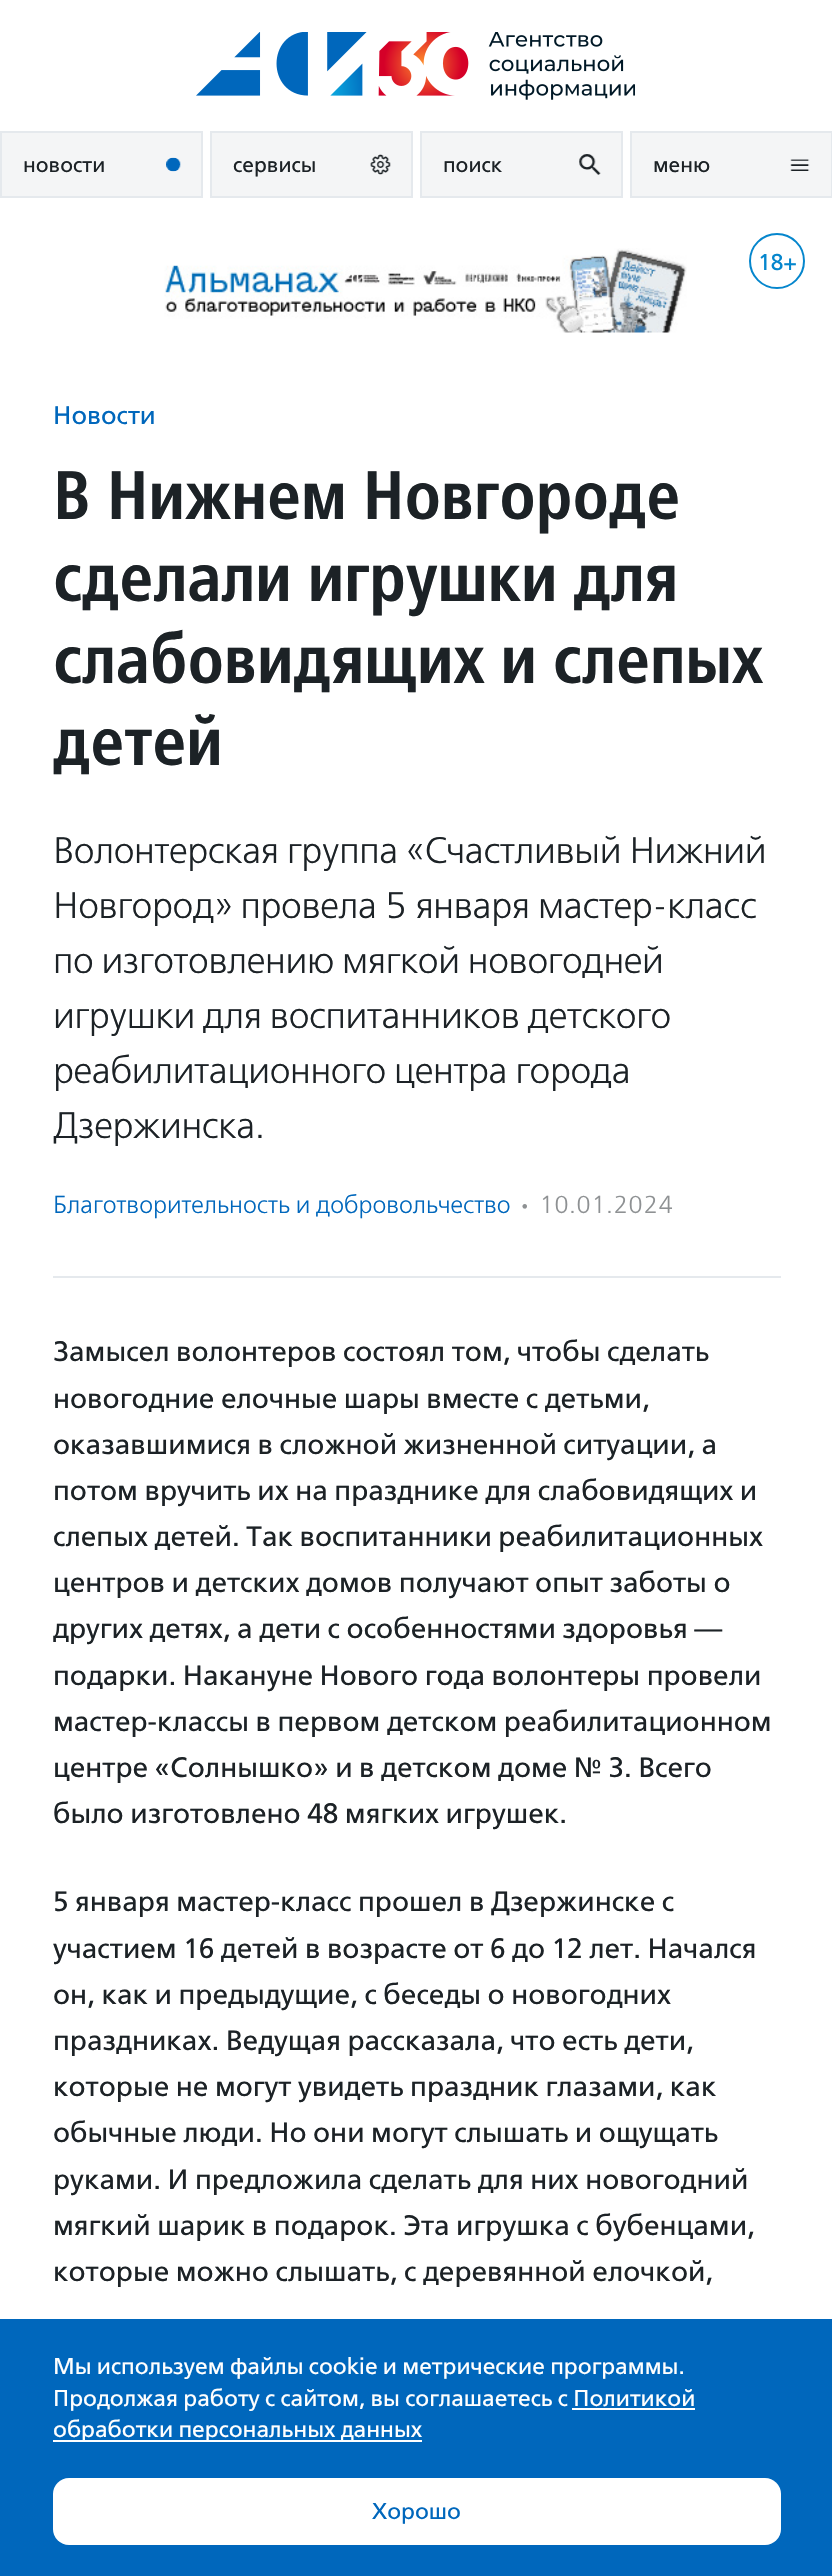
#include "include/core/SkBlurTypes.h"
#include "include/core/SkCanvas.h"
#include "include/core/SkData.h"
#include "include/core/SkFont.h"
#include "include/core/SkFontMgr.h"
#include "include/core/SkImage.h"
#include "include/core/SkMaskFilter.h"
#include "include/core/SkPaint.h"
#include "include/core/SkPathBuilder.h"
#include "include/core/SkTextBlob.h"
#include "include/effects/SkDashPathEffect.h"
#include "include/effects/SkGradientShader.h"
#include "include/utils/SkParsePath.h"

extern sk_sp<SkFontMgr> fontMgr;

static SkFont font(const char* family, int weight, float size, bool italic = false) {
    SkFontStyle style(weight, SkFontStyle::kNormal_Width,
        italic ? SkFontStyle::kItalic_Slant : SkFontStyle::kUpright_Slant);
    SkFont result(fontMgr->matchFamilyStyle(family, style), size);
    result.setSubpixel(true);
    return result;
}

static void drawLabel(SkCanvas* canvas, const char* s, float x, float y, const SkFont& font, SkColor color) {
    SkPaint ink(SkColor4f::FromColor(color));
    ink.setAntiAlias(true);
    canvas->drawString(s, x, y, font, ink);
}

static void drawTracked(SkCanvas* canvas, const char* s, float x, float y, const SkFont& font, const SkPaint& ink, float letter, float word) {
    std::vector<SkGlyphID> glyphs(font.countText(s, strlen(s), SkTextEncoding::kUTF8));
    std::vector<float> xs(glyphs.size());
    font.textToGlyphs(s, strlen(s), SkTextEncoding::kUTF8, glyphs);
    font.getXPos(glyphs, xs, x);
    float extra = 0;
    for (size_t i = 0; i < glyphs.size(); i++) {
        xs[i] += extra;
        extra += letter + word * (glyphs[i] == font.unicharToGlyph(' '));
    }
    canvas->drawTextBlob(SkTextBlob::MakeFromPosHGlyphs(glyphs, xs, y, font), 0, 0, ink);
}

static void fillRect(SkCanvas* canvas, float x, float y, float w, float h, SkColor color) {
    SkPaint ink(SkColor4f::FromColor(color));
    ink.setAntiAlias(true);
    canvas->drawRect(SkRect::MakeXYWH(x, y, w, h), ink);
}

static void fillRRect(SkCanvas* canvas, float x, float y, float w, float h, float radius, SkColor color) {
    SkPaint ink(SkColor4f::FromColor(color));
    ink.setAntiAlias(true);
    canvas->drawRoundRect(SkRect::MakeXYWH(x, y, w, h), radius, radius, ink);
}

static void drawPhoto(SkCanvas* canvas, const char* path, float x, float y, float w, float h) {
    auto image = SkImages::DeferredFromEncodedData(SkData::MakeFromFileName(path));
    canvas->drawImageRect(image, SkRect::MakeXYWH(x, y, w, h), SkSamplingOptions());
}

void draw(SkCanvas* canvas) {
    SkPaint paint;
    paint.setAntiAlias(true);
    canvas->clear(0xFFFFFFFF);
    drawPhoto(canvas, "assets/img1.png", 196, 32, 439, 68);
    paint.setColor(0xFFF4F5F6);
    canvas->drawRect(SkRect::MakeXYWH(1, 132, 201, 65), paint);
    paint.setStroke(true);
    paint.setStrokeWidth(2);
    paint.setColor(0xFFE5E9ED);
    canvas->drawRect(SkRect::MakeXYWH(1, 132, 201, 65), paint);
    SkFont font1 = font("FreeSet", 400, 21);
    drawLabel(canvas, "новости", 23, 172, font1, 0xFF1C2226);
    drawPhoto(canvas, "assets/img2.png", 166, 157, 15, 15);
    paint.setStroke(false);
    paint.setColor(0xFFF4F5F6);
    canvas->drawRect(SkRect::MakeXYWH(211, 132, 201, 65), paint);
    paint.setStroke(true);
    paint.setColor(0xFFE5E9ED);
    canvas->drawRect(SkRect::MakeXYWH(211, 132, 201, 65), paint);
    drawLabel(canvas, "сервисы", 233, 172, font1, 0xFF1C2226);
    drawPhoto(canvas, "assets/img3.png", 370, 154, 21, 21);
    paint.setStroke(false);
    paint.setColor(0xFFF4F5F6);
    canvas->drawRect(SkRect::MakeXYWH(421, 132, 201, 65), paint);
    paint.setStroke(true);
    paint.setColor(0xFFE5E9ED);
    canvas->drawRect(SkRect::MakeXYWH(421, 132, 201, 65), paint);
    drawLabel(canvas, "поиск", 443, 172, font1, 0xFF1C2226);
    drawPhoto(canvas, "assets/img4.png", 579, 154, 22, 21);
    paint.setStroke(false);
    paint.setColor(0xFFF4F5F6);
    canvas->drawRect(SkRect::MakeXYWH(631, 132, 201, 65), paint);
    paint.setStroke(true);
    paint.setColor(0xFFE5E9ED);
    canvas->drawRect(SkRect::MakeXYWH(631, 132, 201, 65), paint);
    drawLabel(canvas, "меню", 653, 172, font1, 0xFF1C2226);
    drawPhoto(canvas, "assets/img5.png", 790, 159, 20, 12);
    drawPhoto(canvas, "assets/img6.png", 164, 248, 523, 85);
    paint.setColor(0xFF0586CD);
    canvas->drawCircle(777, 261, 27, paint);
    SkFont font2 = font("FreeSet", 400, 22.75f);
    drawLabel(canvas, "18+", 758, 270, font2, 0xFF0586CD);
    fillRect(canvas, 53, 1276, 728, 2, 0xFFE5E9ED);
    SkFont font3 = font("FreeSet", 400, 25.5f);
    drawLabel(canvas, "Новости", 53, 424, font3, 0xFF0067BC);
    SkFont font4 = font("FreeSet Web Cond", 600, 68.25f);
    drawLabel(canvas, "В Нижнем Новгороде", 53, 519, font4, 0xFF1C2226);
    drawLabel(canvas, "сделали игрушки для", 53, 601, font4, 0xFF1C2226);
    drawLabel(canvas, "слабовидящих и слепых", 53, 683, font4, 0xFF1C2226);
    drawLabel(canvas, "детей", 53, 765, font4, 0xFF1C2226);
    SkFont font5 = font("FreeSet", 300, 36.75f);
    paint.setStroke(false);
    paint.setColor(0xFF1C2226);
    drawTracked(canvas, "Волонтерская группа «Счастливый Нижний", 53, 863, font5, paint, -0.35f, 0);
    drawTracked(canvas, "Новгород» провела 5 января мастер-класс", 53, 918, font5, paint, -0.35f, 0);
    drawTracked(canvas, "по изготовлению мягкой новогодней", 53, 973, font5, paint, -0.35f, 0);
    drawTracked(canvas, "игрушки для воспитанников детского", 53, 1028, font5, paint, -0.35f, 0);
    drawTracked(canvas, "реабилитационного центра города", 53, 1083, font5, paint, -0.35f, 0);
    drawTracked(canvas, "Дзержинска.", 53, 1138, font5, paint, -0.35f, 0);
    SkFont font6 = font("FreeSet", 300, 24.5f);
    drawLabel(canvas, "Благотворительность и добровольчество", 53, 1213, font6, 0xFF0067BC);
    SkFont font7 = font("FreeSet", 700, 24.5f);
    drawLabel(canvas, "·", 521, 1213, font7, 0xFF8E9193);
    drawLabel(canvas, "10.01.2024", 539, 1213, font6, 0xFF8E9193);
    SkFont font8 = font("FreeSet", 400, 28);
    drawLabel(canvas, "Замысел волонтеров состоял том, чтобы сделать", 53, 1361, font8, 0xFF1C2226);
    drawLabel(canvas, "новогодние елочные шары вместе с детьми,", 53, 1408, font8, 0xFF1C2226);
    drawLabel(canvas, "оказавшимися в сложной жизненной ситуации, а", 53, 1454, font8, 0xFF1C2226);
    drawLabel(canvas, "потом вручить их на празднике для слабовидящих и", 53, 1500, font8, 0xFF1C2226);
    drawLabel(canvas, "слепых детей. Так воспитанники реабилитационных", 53, 1546, font8, 0xFF1C2226);
    drawLabel(canvas, "центров и детских домов получают опыт заботы о", 53, 1592, font8, 0xFF1C2226);
    drawLabel(canvas, "других детях, а дети с особенностями здоровья —", 53, 1638, font8, 0xFF1C2226);
    drawLabel(canvas, "подарки. Накануне Нового года волонтеры провели", 53, 1685, font8, 0xFF1C2226);
    drawLabel(canvas, "мастер-классы в первом детском реабилитационном", 53, 1731, font8, 0xFF1C2226);
    drawLabel(canvas, "центре «Солнышко» и в детском доме № 3. Всего", 53, 1777, font8, 0xFF1C2226);
    drawLabel(canvas, "было изготовлено 48 мягких игрушек.", 53, 1823, font8, 0xFF1C2226);
    drawLabel(canvas, "5 января мастер-класс прошел в Дзержинске с", 53, 1911, font8, 0xFF1C2226);
    drawLabel(canvas, "участием 16 детей в возрасте от 6 до 12 лет. Начался", 53, 1958, font8, 0xFF1C2226);
    drawLabel(canvas, "он, как и предыдущие, с беседы о новогодних", 53, 2004, font8, 0xFF1C2226);
    drawLabel(canvas, "праздниках. Ведущая рассказала, что есть дети,", 53, 2050, font8, 0xFF1C2226);
    drawLabel(canvas, "которые не могут увидеть праздник глазами, как", 53, 2096, font8, 0xFF1C2226);
    drawLabel(canvas, "обычные люди. Но они могут слышать и ощущать", 53, 2142, font8, 0xFF1C2226);
    drawLabel(canvas, "руками. И предложила сделать для них новогодний", 53, 2189, font8, 0xFF1C2226);
    drawLabel(canvas, "мягкий шарик в подарок. Эта игрушка с бубенцами,", 53, 2235, font8, 0xFF1C2226);
    drawLabel(canvas, "которые можно слышать, с деревянной елочкой,", 53, 2281, font8, 0xFF1C2226);
    fillRect(canvas, 0, 2319, 832, 257, 0xFF0067BC);
    drawLabel(canvas, "Мы используем файлы cookie и метрические программы.", 53, 2374, font2, 0xFFFFFFFF);
    drawLabel(canvas, "Продолжая работу с сайтом, вы соглашаетесь с Политикой", 53, 2406, font2, 0xFFFFFFFF);
    fillRect(canvas, 53, 2440, 369, 2, 0xFFFFFFFF);
    drawLabel(canvas, "обработки персональных данных", 53, 2437, font2, 0xFFFFFFFF);
    fillRect(canvas, 572, 2408, 123, 2, 0xFFFFFFFF);
    fillRRect(canvas, 53, 2478, 728, 67, 16, 0xFFFFFFFF);
    drawLabel(canvas, "Хорошо", 372, 2519, font2, 0xFF0067BC);
}
